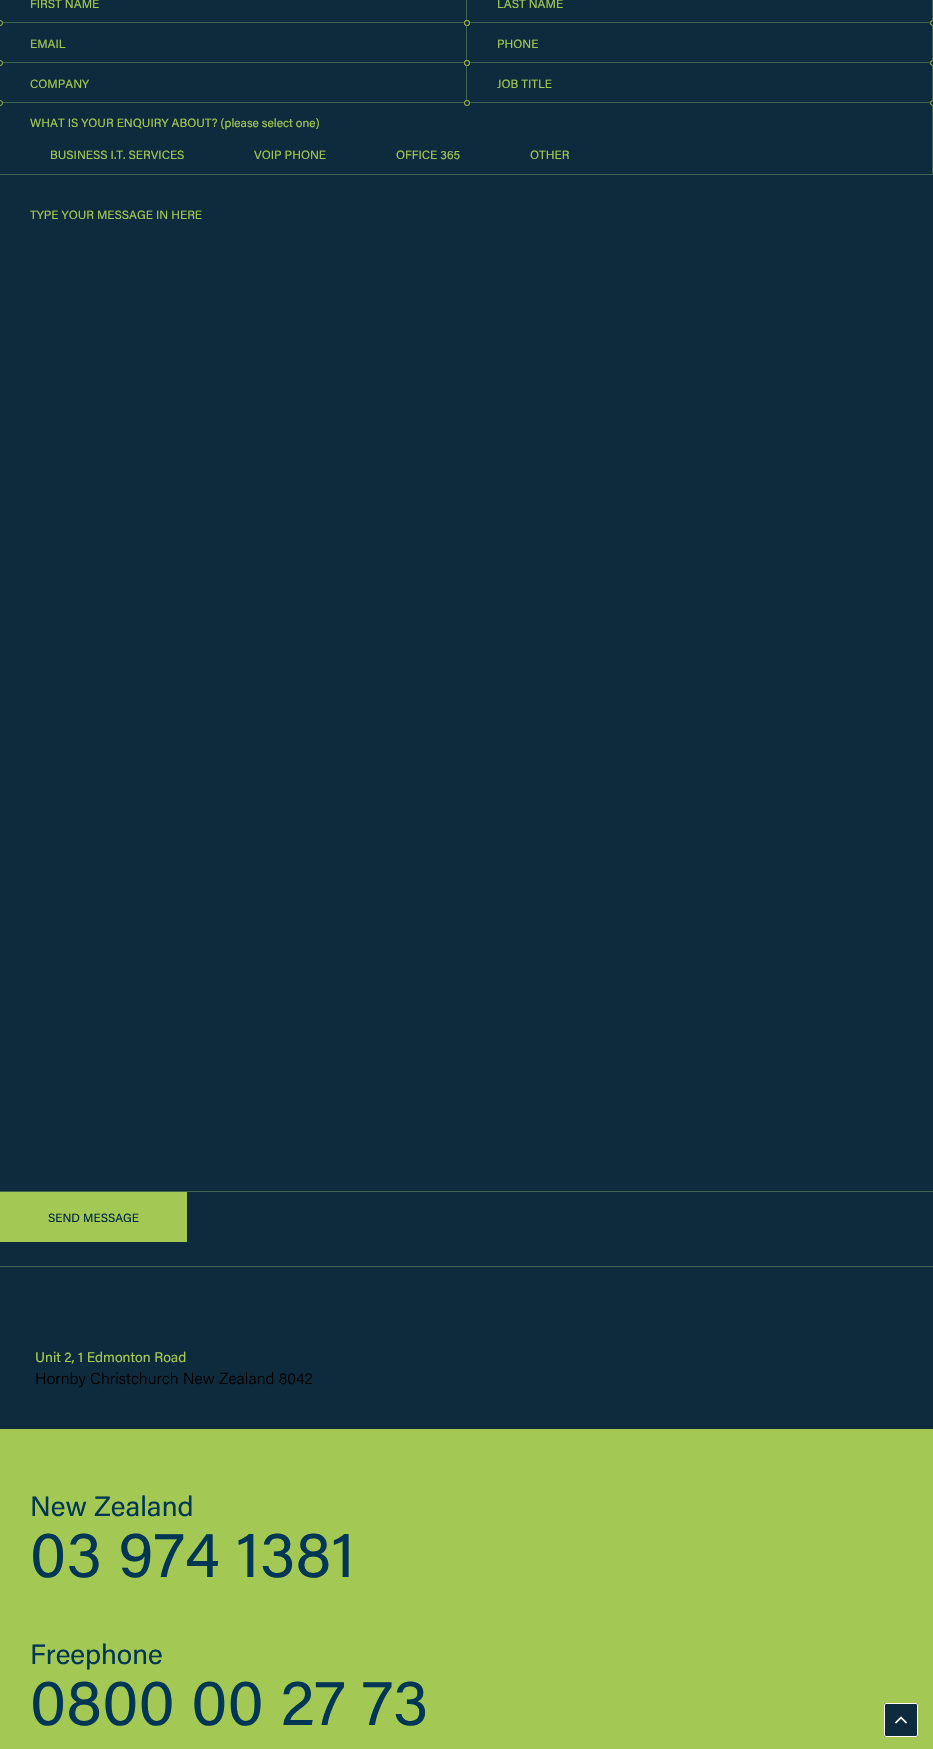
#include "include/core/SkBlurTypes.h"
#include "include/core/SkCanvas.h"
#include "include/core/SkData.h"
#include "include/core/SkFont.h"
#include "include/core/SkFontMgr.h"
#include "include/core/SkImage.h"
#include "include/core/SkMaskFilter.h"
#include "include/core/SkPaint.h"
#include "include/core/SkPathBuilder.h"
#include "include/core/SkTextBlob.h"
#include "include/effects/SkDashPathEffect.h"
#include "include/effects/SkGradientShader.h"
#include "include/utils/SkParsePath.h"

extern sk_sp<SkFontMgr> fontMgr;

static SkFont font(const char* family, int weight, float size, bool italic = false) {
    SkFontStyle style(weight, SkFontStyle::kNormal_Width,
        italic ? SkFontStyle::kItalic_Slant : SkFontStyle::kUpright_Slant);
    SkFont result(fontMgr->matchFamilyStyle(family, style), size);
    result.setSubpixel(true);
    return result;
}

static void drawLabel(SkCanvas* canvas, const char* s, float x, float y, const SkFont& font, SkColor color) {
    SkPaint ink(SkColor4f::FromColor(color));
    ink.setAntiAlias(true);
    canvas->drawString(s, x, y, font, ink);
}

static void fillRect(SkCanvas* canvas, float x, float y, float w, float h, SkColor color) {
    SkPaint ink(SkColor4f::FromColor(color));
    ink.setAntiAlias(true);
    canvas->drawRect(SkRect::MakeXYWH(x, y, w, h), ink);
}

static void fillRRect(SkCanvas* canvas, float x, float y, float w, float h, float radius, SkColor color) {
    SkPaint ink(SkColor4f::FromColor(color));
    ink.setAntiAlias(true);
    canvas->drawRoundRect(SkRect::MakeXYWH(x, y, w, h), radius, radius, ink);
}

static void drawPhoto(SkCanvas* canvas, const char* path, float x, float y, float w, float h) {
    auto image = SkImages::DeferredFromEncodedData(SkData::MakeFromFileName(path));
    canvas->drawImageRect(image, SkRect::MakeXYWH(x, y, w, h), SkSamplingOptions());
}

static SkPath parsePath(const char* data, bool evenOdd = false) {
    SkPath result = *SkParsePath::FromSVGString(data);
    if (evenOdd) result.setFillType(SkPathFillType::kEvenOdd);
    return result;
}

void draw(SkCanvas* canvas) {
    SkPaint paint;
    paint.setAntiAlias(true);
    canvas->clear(0xFF0E2B3E);
    fillRect(canvas, 0, 1266, 933, 1, 0xFF3D6352);
    fillRect(canvas, 466, 0, 1, 103, 0xFF3D6352);
    fillRect(canvas, 0, 22, 467, 1, 0xFF3D6352);
    SkFont font1 = font("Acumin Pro", 400, 12);
    drawLabel(canvas, "FIRST NAME", 30, 8, font1, 0xFFA3C954);
    paint.setStroke(true);
    paint.setStrokeWidth(1);
    paint.setColor(0xFF99B444);
    canvas->drawCircle(0, 23, 2.5f, paint);
    fillRect(canvas, 932, 0, 1, 103, 0xFF3D6352);
    fillRect(canvas, 467, 22, 466, 1, 0xFF3D6352);
    canvas->drawCircle(467, 23, 2.5f, paint);
    drawLabel(canvas, "LAST NAME", 497, 8, font1, 0xFFA3C954);
    canvas->drawCircle(467, 23, 2.5f, paint);
    canvas->drawCircle(933, 23, 2.5f, paint);
    paint.setStroke(false);
    paint.setColor(0xFF0E2B3E);
    canvas->drawPath(parsePath("M0 20C1.5 20 3 21.5 3 23C3 24.5 1.5 26 0 26Z"), paint);
    paint.setStroke(true);
    paint.setColor(0xFF99B444);
    canvas->drawCircle(0, 23, 2.5f, paint);
    canvas->drawCircle(467, 23, 2.5f, paint);
    fillRect(canvas, 0, 62, 933, 1, 0xFF3D6352);
    drawLabel(canvas, "EMAIL", 30, 48, font1, 0xFFA3C954);
    canvas->drawCircle(0, 63, 2.5f, paint);
    canvas->drawCircle(467, 63, 2.5f, paint);
    paint.setStroke(false);
    paint.setColor(0xFF0E2B3E);
    canvas->drawCircle(467, 23, 2.5f, paint);
    paint.setStroke(true);
    paint.setColor(0xFF99B444);
    canvas->drawCircle(467, 23, 2.5f, paint);
    paint.setStroke(false);
    paint.setColor(0xFF0E2B3E);
    canvas->drawPath(parsePath("M933 20V26C931.5 26 930 24.5 930 23C930 21.5 931.5 20 933 20Z"), paint);
    paint.setStroke(true);
    paint.setColor(0xFF99B444);
    canvas->drawCircle(933, 23, 2.5f, paint);
    drawLabel(canvas, "PHONE", 497, 48, font1, 0xFFA3C954);
    canvas->drawCircle(467, 63, 2.5f, paint);
    canvas->drawCircle(933, 63, 2.5f, paint);
    paint.setStroke(false);
    paint.setColor(0xFF0E2B3E);
    canvas->drawPath(parsePath("M0 60C1.5 60 3 61.5 3 63C3 64.5 1.5 66 0 66Z"), paint);
    paint.setStroke(true);
    paint.setColor(0xFF99B444);
    canvas->drawCircle(0, 63, 2.5f, paint);
    canvas->drawCircle(467, 63, 2.5f, paint);
    fillRect(canvas, 0, 102, 933, 1, 0xFF3D6352);
    drawLabel(canvas, "COMPANY", 30, 88, font1, 0xFFA3C954);
    paint.setStroke(false);
    paint.setColor(0xFF0E2B3E);
    canvas->drawPath(parsePath("M0 100C1.5 100 3 101.5 3 103C3 104.5 1.5 106 0 106Z"), paint);
    paint.setStroke(true);
    paint.setColor(0xFF99B444);
    canvas->drawCircle(0, 103, 2.5f, paint);
    canvas->drawCircle(467, 103, 2.5f, paint);
    paint.setStroke(false);
    paint.setColor(0xFF0E2B3E);
    canvas->drawCircle(467, 63, 2.5f, paint);
    paint.setStroke(true);
    paint.setColor(0xFF99B444);
    canvas->drawCircle(467, 63, 2.5f, paint);
    paint.setStroke(false);
    paint.setColor(0xFF0E2B3E);
    canvas->drawPath(parsePath("M933 60V66C931.5 66 930 64.5 930 63C930 61.5 931.5 60 933 60Z"), paint);
    paint.setStroke(true);
    paint.setColor(0xFF99B444);
    canvas->drawCircle(933, 63, 2.5f, paint);
    drawLabel(canvas, "JOB TITLE", 497, 88, font1, 0xFFA3C954);
    paint.setStroke(false);
    paint.setColor(0xFF0E2B3E);
    canvas->drawCircle(467, 103, 2.5f, paint);
    paint.setStroke(true);
    paint.setColor(0xFF99B444);
    canvas->drawCircle(467, 103, 2.5f, paint);
    fillRect(canvas, 932, 103, 1, 72, 0xFF3D6352);
    paint.setStroke(false);
    paint.setColor(0xFF0E2B3E);
    canvas->drawPath(parsePath("M933 100V106C931.5 106 930 104.5 930 103C930 101.5 931.5 100 933 100Z"), paint);
    paint.setStroke(true);
    paint.setColor(0xFF99B444);
    canvas->drawCircle(933, 103, 2.5f, paint);
    fillRect(canvas, 0, 174, 933, 1, 0xFF3D6352);
    drawLabel(canvas, "WHAT IS YOUR ENQUIRY ABOUT? (please select one)", 30, 127, font1, 0xFFA3C954);
    drawLabel(canvas, "BUSINESS I.T. SERVICES", 50, 159, font1, 0xFFA3C954);
    drawLabel(canvas, "VOIP PHONE", 254, 159, font1, 0xFFA3C954);
    drawLabel(canvas, "OFFICE 365", 396, 159, font1, 0xFFA3C954);
    drawLabel(canvas, "OTHER", 530, 159, font1, 0xFFA3C954);
    fillRect(canvas, 0, 1191, 933, 1, 0xFF3D6352);
    drawLabel(canvas, "TYPE YOUR MESSAGE IN HERE", 30, 219, font1, 0xFFA3C954);
    fillRect(canvas, 0, 1192, 187, 50, 0xFFA3C954);
    drawLabel(canvas, "SEND MESSAGE", 48, 1222, font1, 0xFF00283F);
    SkFont font2 = font("Acumin Pro", 400, 14);
    drawLabel(canvas, "Unit 2, 1 Edmonton Road", 35, 1362, font2, 0xFFA3C954);
    SkFont font3 = font("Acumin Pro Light", 300, 16);
    drawLabel(canvas, "Hornby Christchurch New Zealand 8042", 35, 1384, font3, 0xFF000000);
    fillRect(canvas, 0, 1429, 933, 320, 0xFFA3C954);
    SkFont font4 = font("Acumin Pro", 400, 28);
    drawLabel(canvas, "New Zealand", 30, 1516, font4, 0xFF013655);
    SkFont font5 = font("Acumin Pro", 400, 65);
    drawLabel(canvas, "03 974 1381", 30, 1577, font5, 0xFF013655);
    drawLabel(canvas, "Freephone", 30, 1664, font4, 0xFF013655);
    drawLabel(canvas, "0800 00 27 73", 30, 1725, font5, 0xFF013655);
    fillRRect(canvas, 884, 1703, 34, 34, 2, 0xFF0E2B3E);
    drawPhoto(canvas, "assets/img1.png", 895, 1716, 12, 8);
    paint.setColor(0xFFFFFFFF);
    canvas->drawRoundRect(SkRect::MakeXYWH(884.5f, 1703.5f, 33, 33), 1.5f, 1.5f, paint);
}
